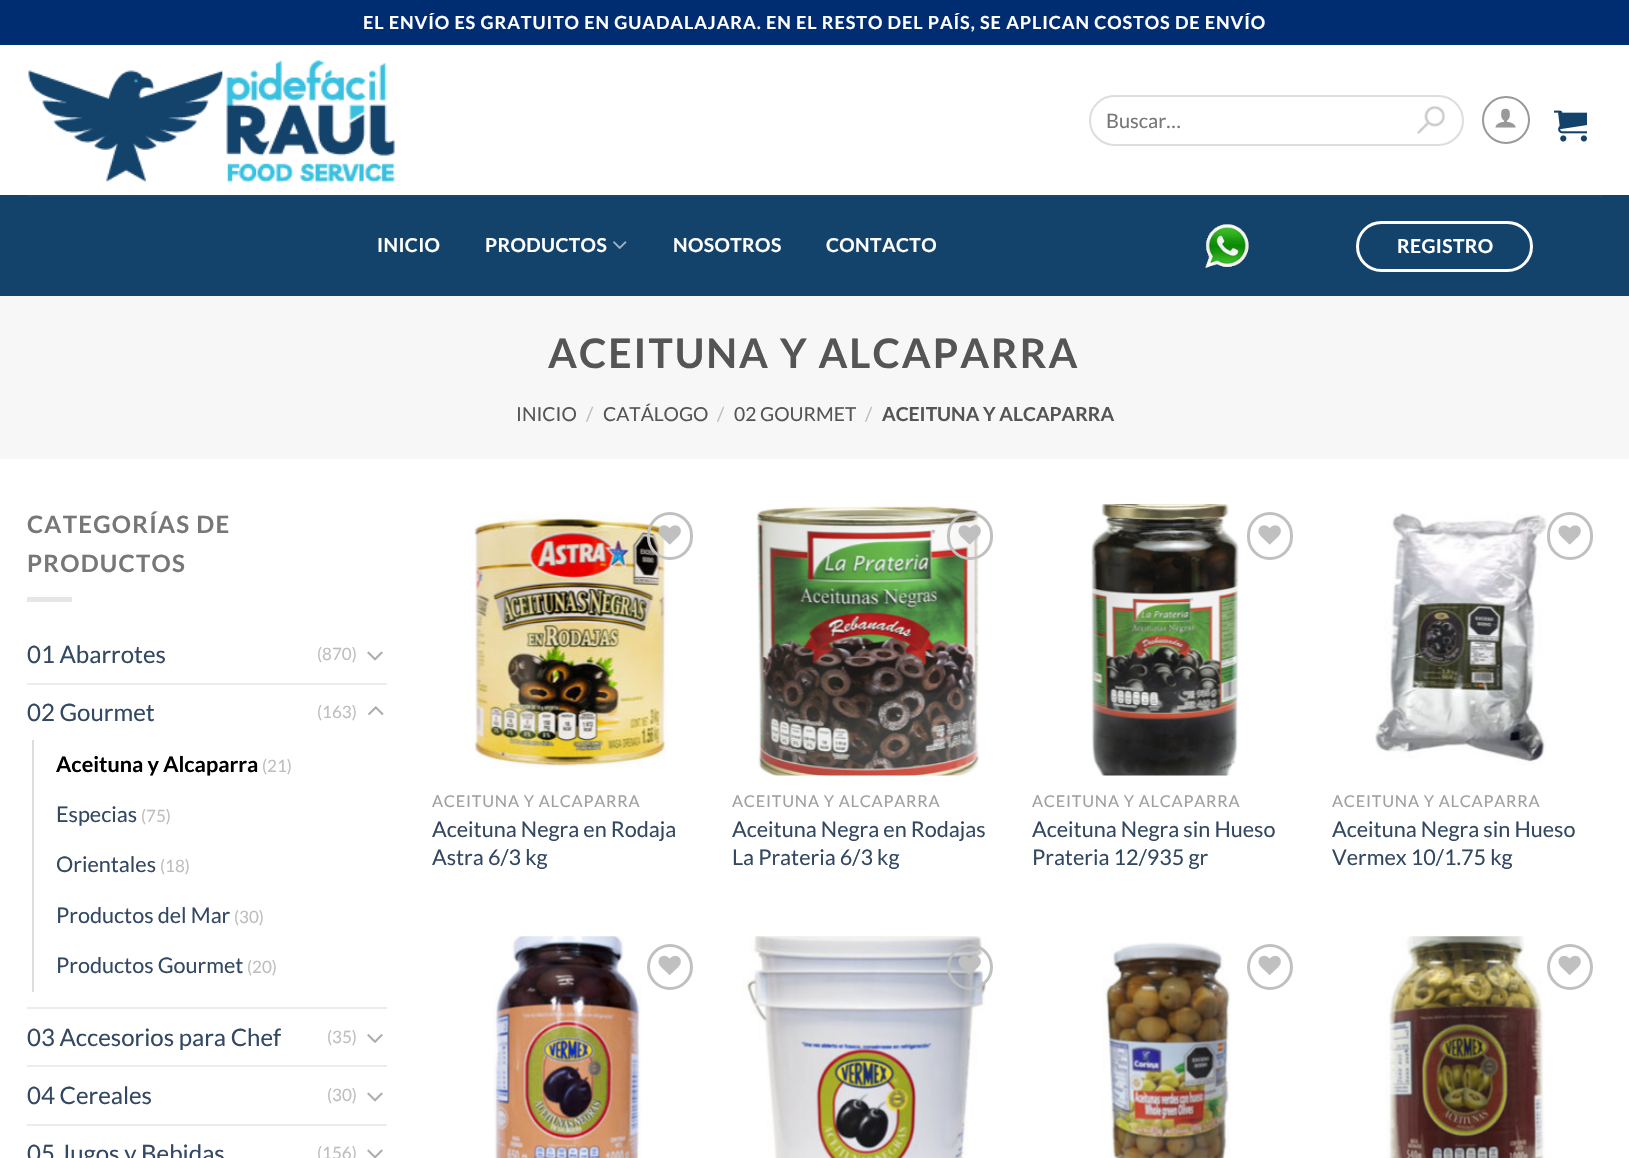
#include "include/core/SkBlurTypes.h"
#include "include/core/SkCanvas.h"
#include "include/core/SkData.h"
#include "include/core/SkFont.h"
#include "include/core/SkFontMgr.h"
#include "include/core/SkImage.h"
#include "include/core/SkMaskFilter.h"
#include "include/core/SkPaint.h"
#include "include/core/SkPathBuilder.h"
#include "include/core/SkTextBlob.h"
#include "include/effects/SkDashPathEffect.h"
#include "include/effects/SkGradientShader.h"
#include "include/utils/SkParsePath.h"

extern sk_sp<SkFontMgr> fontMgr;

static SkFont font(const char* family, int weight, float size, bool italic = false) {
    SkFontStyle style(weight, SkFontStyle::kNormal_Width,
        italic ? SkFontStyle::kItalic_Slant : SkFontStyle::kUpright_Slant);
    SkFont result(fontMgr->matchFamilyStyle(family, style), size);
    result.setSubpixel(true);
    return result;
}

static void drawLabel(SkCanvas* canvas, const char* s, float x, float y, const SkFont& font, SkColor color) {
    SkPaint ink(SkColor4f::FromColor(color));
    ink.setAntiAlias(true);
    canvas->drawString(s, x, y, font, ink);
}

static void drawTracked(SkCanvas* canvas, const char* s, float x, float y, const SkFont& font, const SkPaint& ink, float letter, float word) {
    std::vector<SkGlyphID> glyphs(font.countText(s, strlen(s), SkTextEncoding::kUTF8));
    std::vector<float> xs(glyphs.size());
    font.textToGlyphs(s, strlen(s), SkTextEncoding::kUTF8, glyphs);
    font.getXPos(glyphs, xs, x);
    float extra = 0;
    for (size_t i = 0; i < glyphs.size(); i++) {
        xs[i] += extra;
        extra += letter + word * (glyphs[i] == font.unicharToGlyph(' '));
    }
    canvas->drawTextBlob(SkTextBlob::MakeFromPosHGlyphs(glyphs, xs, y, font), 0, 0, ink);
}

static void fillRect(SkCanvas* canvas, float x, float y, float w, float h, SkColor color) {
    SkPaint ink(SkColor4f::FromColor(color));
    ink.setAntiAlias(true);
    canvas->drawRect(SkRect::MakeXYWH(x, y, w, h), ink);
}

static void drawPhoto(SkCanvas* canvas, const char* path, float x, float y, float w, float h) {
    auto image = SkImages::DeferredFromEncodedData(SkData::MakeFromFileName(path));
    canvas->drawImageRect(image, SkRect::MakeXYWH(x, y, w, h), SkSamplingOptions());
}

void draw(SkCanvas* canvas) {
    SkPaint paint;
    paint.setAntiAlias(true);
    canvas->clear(0xFFFFFFFF);
    fillRect(canvas, 0, 0, 1629, 45, 0xFF002D72);
    SkFont font1 = font("Lato", 700, 18);
    paint.setColor(0xFFFFFFFF);
    drawTracked(canvas, "EL ENVÍO ES GRATUITO EN GUADALAJARA. EN EL RESTO DEL PAÍS, SE APLICAN COSTOS DE ENVÍO", 363, 29, font1, paint, 0.9f, 0);
    drawPhoto(canvas, "assets/img1.png", 28, 60, 367, 123);
    drawPhoto(canvas, "assets/img2.png", 1417, 106, 28, 28);
    paint.setStroke(true);
    paint.setStrokeWidth(2);
    paint.setColor(0xFFDDDDDD);
    canvas->drawRoundRect(SkRect::MakeXYWH(1090, 96, 373, 49), 24.5f, 24.5f, paint);
    SkFont font2 = font("Lato", 400, 20);
    drawLabel(canvas, "Buscar…", 1106, 128, font2, 0xFF777777);
    paint.setColor(0xFF999999);
    canvas->drawCircle(1506, 120, 23, paint);
    drawPhoto(canvas, "assets/img3.png", 1495, 108, 21, 20);
    drawPhoto(canvas, "assets/img4.png", 1554, 110, 33, 32);
    fillRect(canvas, 0, 195, 1629, 101, 0xFF13426B);
    fillRect(canvas, 27, 195, 1575, 2, 0xFF1D476C);
    SkFont font3 = font("Lato", 700, 19.25f);
    paint.setStroke(false);
    paint.setColor(0xFFFFFFFF);
    drawTracked(canvas, "INICIO", 377, 252, font3, paint, 0.4f, 0);
    drawTracked(canvas, "PRODUCTOS", 485, 252, font3, paint, 0.4f, 0);
    drawPhoto(canvas, "assets/img5.png", 613, 241, 14, 8);
    drawTracked(canvas, "NOSOTROS", 673, 252, font3, paint, 0.4f, 0);
    drawTracked(canvas, "CONTACTO", 826, 252, font3, paint, 0.4f, 0);
    drawPhoto(canvas, "assets/img6.png", 1205, 224, 44, 44);
    paint.setStroke(true);
    paint.setStrokeWidth(3);
    canvas->drawRoundRect(SkRect::MakeXYWH(1357.5f, 222.5f, 174, 48), 24, 24, paint);
    paint.setStroke(false);
    drawTracked(canvas, "REGISTRO", 1397, 253, font3, paint, 0.4f, 0);
    fillRect(canvas, 0, 296, 1629, 163, 0xFFF7F7F7);
    SkFont font4 = font("Lato", 700, 40.75f);
    paint.setColor(0xFF555555);
    drawTracked(canvas, "ACEITUNA Y ALCAPARRA", 548, 368, font4, paint, 2, 0);
    SkFont font5 = font("Lato", 400, 19.25f);
    drawLabel(canvas, "INICIO", 516, 421, font5, 0xFF555555);
    drawLabel(canvas, "/", 586, 421, font5, 0xFFBEBEBE);
    drawLabel(canvas, "CATÁLOGO", 603, 421, font5, 0xFF555555);
    drawLabel(canvas, "/", 717, 421, font5, 0xFFBEBEBE);
    drawLabel(canvas, "02 GOURMET", 734, 421, font5, 0xFF555555);
    drawLabel(canvas, "/", 865, 421, font5, 0xFFBEBEBE);
    drawLabel(canvas, "ACEITUNA Y ALCAPARRA", 882, 421, font3, 0xFF555555);
    SkFont font6 = font("Lato", 700, 24);
    paint.setColor(0xFF777777);
    drawTracked(canvas, "CATEGORÍAS DE", 27, 533, font6, paint, 1.25f, 0);
    drawTracked(canvas, "PRODUCTOS", 27, 572, font6, paint, 1.25f, 0);
    fillRect(canvas, 27, 597, 45, 5, 0xFFE6E6E6);
    SkFont font7 = font("Lato", 400, 24);
    drawLabel(canvas, "01 Abarrotes", 27, 663, font7, 0xFF334862);
    SkFont font8 = font("Lato", 400, 17);
    drawLabel(canvas, "(870)", 317, 660, font8, 0xFFBEBEBE);
    drawPhoto(canvas, "assets/img7.png", 367, 651, 16, 10);
    fillRect(canvas, 27, 683, 360, 2, 0xFFECECEC);
    drawLabel(canvas, "02 Gourmet", 27, 721, font7, 0xFF334862);
    drawLabel(canvas, "(163)", 317, 718, font8, 0xFFBEBEBE);
    drawPhoto(canvas, "assets/img8.png", 368, 706, 16, 10);
    fillRect(canvas, 32, 740, 2, 252, 0xFFDDDDDD);
    SkFont font9 = font("Lato", 700, 21.6f);
    drawLabel(canvas, "Aceituna y Alcaparra", 56, 772, font9, 0xFF000000);
    drawLabel(canvas, "(21)", 262, 772, font8, 0xFFBEBEBE);
    SkFont font10 = font("Lato", 400, 21.6f);
    drawLabel(canvas, "Especias", 56, 822, font10, 0xFF334862);
    drawLabel(canvas, "(75)", 141, 822, font8, 0xFFBEBEBE);
    drawLabel(canvas, "Orientales", 56, 872, font10, 0xFF334862);
    drawLabel(canvas, "(18)", 160, 872, font8, 0xFFBEBEBE);
    drawLabel(canvas, "Productos del Mar", 56, 923, font10, 0xFF334862);
    drawLabel(canvas, "(30)", 234, 923, font8, 0xFFBEBEBE);
    drawLabel(canvas, "Productos Gourmet", 56, 973, font10, 0xFF334862);
    drawLabel(canvas, "(20)", 247, 973, font8, 0xFFBEBEBE);
    fillRect(canvas, 27, 1007, 360, 2, 0xFFECECEC);
    drawLabel(canvas, "03 Accesorios para Chef", 27, 1046, font7, 0xFF334862);
    drawLabel(canvas, "(35)", 327, 1043, font8, 0xFFBEBEBE);
    drawPhoto(canvas, "assets/img9.png", 367, 1034, 16, 9);
    fillRect(canvas, 27, 1065, 360, 2, 0xFFECECEC);
    drawLabel(canvas, "04 Cereales", 27, 1104, font7, 0xFF334862);
    drawLabel(canvas, "(30)", 327, 1101, font8, 0xFFBEBEBE);
    drawPhoto(canvas, "assets/img7.png", 367, 1092, 16, 10);
    fillRect(canvas, 27, 1124, 360, 2, 0xFFECECEC);
    drawLabel(canvas, "05 Jugos y Bebidas", 27, 1162, font7, 0xFF334862);
    drawLabel(canvas, "(156)", 317, 1159, font8, 0xFFBEBEBE);
    drawPhoto(canvas, "assets/img10.png", 367, 1149, 16, 9);
    drawPhoto(canvas, "assets/img11.png", 474, 514, 194, 254);
    paint.setStroke(true);
    paint.setColor(0xFFC0C0C0);
    canvas->drawRoundRect(SkRect::MakeXYWH(648.5f, 513.5f, 43, 45), 21.5f, 21.5f, paint);
    drawPhoto(canvas, "assets/img12.png", 658, 525, 23, 20);
    SkFont font11 = font("Lato", 400, 16.25f);
    paint.setStroke(false);
    paint.setColor(0xFFA0A0A0);
    drawTracked(canvas, "ACEITUNA Y ALCAPARRA", 432, 807, font11, paint, 0.8f, 0);
    drawLabel(canvas, "Aceituna Negra en Rodaja", 432, 837, font10, 0xFF334862);
    drawLabel(canvas, "Astra 6/3 kg", 432, 865, font10, 0xFF334862);
    drawPhoto(canvas, "assets/img13.png", 756, 506, 223, 270);
    paint.setStroke(true);
    paint.setColor(0xFFC0C0C0);
    canvas->drawRoundRect(SkRect::MakeXYWH(948.5f, 513.5f, 43, 45), 21.5f, 21.5f, paint);
    drawPhoto(canvas, "assets/img14.png", 958, 525, 23, 20);
    paint.setStroke(false);
    paint.setColor(0xFFA0A0A0);
    drawTracked(canvas, "ACEITUNA Y ALCAPARRA", 732, 807, font11, paint, 0.8f, 0);
    drawLabel(canvas, "Aceituna Negra en Rodajas", 732, 837, font10, 0xFF334862);
    drawLabel(canvas, "La Prateria 6/3 kg", 732, 865, font10, 0xFF334862);
    drawPhoto(canvas, "assets/img15.png", 1091, 504, 148, 272);
    paint.setStroke(true);
    paint.setColor(0xFFC0C0C0);
    canvas->drawRoundRect(SkRect::MakeXYWH(1248.5f, 513.5f, 43, 45), 21.5f, 21.5f, paint);
    drawPhoto(canvas, "assets/img16.png", 1258, 525, 23, 20);
    paint.setStroke(false);
    paint.setColor(0xFFA0A0A0);
    drawTracked(canvas, "ACEITUNA Y ALCAPARRA", 1032, 807, font11, paint, 0.8f, 0);
    drawLabel(canvas, "Aceituna Negra sin Hueso", 1032, 837, font10, 0xFF334862);
    drawLabel(canvas, "Prateria 12/935 gr", 1032, 865, font10, 0xFF334862);
    drawPhoto(canvas, "assets/img17.png", 1375, 513, 172, 252);
    paint.setStroke(true);
    paint.setColor(0xFFC0C0C0);
    canvas->drawRoundRect(SkRect::MakeXYWH(1548.5f, 513.5f, 43, 45), 21.5f, 21.5f, paint);
    drawPhoto(canvas, "assets/img16.png", 1558, 525, 23, 20);
    paint.setStroke(false);
    paint.setColor(0xFFA0A0A0);
    drawTracked(canvas, "ACEITUNA Y ALCAPARRA", 1332, 807, font11, paint, 0.8f, 0);
    drawLabel(canvas, "Aceituna Negra sin Hueso", 1332, 837, font10, 0xFF334862);
    drawLabel(canvas, "Vermex 10/1.75 kg", 1332, 865, font10, 0xFF334862);
    drawPhoto(canvas, "assets/img18.png", 493, 936, 149, 222);
    paint.setStroke(true);
    paint.setColor(0xFFC0C0C0);
    canvas->drawCircle(670, 967, 21.5f, paint);
    drawPhoto(canvas, "assets/img19.png", 658, 955, 23, 20);
    drawPhoto(canvas, "assets/img20.png", 742, 936, 244, 222);
    canvas->drawCircle(970, 967, 21.5f, paint);
    drawPhoto(canvas, "assets/img21.png", 958, 956, 23, 19);
    drawPhoto(canvas, "assets/img22.png", 1102, 942, 129, 216);
    canvas->drawCircle(1270, 967, 21.5f, paint);
    drawPhoto(canvas, "assets/img19.png", 1258, 955, 23, 20);
    drawPhoto(canvas, "assets/img23.png", 1385, 936, 160, 222);
    canvas->drawCircle(1570, 967, 21.5f, paint);
    drawPhoto(canvas, "assets/img19.png", 1558, 955, 23, 20);
}
